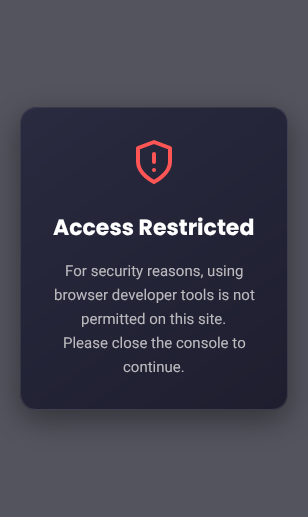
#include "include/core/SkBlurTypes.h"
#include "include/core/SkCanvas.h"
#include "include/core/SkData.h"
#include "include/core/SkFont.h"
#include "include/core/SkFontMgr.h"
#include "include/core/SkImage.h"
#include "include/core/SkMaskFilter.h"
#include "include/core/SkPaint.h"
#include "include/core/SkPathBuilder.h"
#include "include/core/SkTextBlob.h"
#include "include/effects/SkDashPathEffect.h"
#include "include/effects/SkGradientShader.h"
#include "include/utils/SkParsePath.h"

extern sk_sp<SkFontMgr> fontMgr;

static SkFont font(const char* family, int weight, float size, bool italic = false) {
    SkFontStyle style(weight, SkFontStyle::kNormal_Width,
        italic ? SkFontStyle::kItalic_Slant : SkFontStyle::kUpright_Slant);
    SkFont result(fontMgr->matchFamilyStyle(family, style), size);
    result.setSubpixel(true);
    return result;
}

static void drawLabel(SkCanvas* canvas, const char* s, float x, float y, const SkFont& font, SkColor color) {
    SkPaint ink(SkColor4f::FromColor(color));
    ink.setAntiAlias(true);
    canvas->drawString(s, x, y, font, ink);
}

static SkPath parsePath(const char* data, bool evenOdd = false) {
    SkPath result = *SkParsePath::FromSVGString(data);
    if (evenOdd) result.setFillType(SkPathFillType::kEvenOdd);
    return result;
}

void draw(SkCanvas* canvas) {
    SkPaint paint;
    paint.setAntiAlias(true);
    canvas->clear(0xFF54545E);
    paint.setColor(0x66000000);
    paint.setMaskFilter(SkMaskFilter::MakeBlur(kNormal_SkBlurStyle, 15));
    canvas->drawRoundRect(SkRect::MakeXYWH(20, 117, 268, 303), 16, 16, paint);
    paint.setMaskFilter(nullptr);
    canvas->save();
    canvas->clipPath(parsePath("M36 107H272C281 107 288 114 288 123V394C288 403 281 410 272 410H36C27 410 20 403 20 394V123C20 114 27 107 36 107Z"), true);
    {
        const SkColor colors[] = {0xFF2A2A40, 0xFF1E1E2F};
        const float stops[] = {0, 1};
        const SkPoint ends[] = {{40, -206}, {268, 121}};
        paint.setShader(SkGradientShader::MakeLinear(ends, colors, stops, 2, SkTileMode::kClamp));
        paint.setAlpha(255);
    }
    canvas->drawRect(SkRect::MakeXYWH(30, 107, 248, 1), paint);
    {
        const SkColor colors[] = {0xFF2A2A40, 0xFF1E1E2F};
        const float stops[] = {0, 1};
        const SkPoint ends[] = {{-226, 95}, {2.5f, 422}};
        paint.setShader(SkGradientShader::MakeLinear(ends, colors, stops, 2, SkTileMode::kClamp));
        paint.setAlpha(255);
    }
    canvas->drawRect(SkRect::MakeXYWH(20, 117, 1, 283), paint);
    {
        const SkColor colors[] = {0xFF2A2A40, 0xFF1E1E2F};
        const float stops[] = {0, 1};
        const SkPoint ends[] = {{40, 95}, {268, 422}};
        paint.setShader(SkGradientShader::MakeLinear(ends, colors, stops, 2, SkTileMode::kClamp));
        paint.setAlpha(255);
    }
    canvas->drawRect(SkRect::MakeXYWH(21, 108, 266, 301), paint);
    {
        const SkColor colors[] = {0xFF2A2A40, 0xFF1E1E2F};
        const float stops[] = {0, 1};
        const SkPoint ends[] = {{306, 95}, {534, 422}};
        paint.setShader(SkGradientShader::MakeLinear(ends, colors, stops, 2, SkTileMode::kClamp));
        paint.setAlpha(255);
    }
    canvas->drawRect(SkRect::MakeXYWH(287, 117, 1, 283), paint);
    {
        const SkColor colors[] = {0xFF2A2A40, 0xFF1E1E2F};
        const float stops[] = {0, 1};
        const SkPoint ends[] = {{40, 396}, {268, 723}};
        paint.setShader(SkGradientShader::MakeLinear(ends, colors, stops, 2, SkTileMode::kClamp));
        paint.setAlpha(255);
    }
    canvas->drawRect(SkRect::MakeXYWH(30, 409, 248, 1), paint);
    canvas->restore();
    paint.setStroke(true);
    paint.setStrokeWidth(1);
    paint.setShader(nullptr);
    paint.setColor(0x1AFFFFFF);
    canvas->drawRoundRect(SkRect::MakeXYWH(20.5f, 107.5f, 267, 302), 15.5f, 15.5f, paint);
    paint.setStrokeWidth(4);
    paint.setStrokeCap(SkPaint::kRound_Cap);
    paint.setStrokeJoin(SkPaint::kRound_Join);
    paint.setColor(0xFFFF5555);
    canvas->drawPath(parsePath("M154 182C154 182 170 174 170 162V148L154 142L138 148V162C138 174 154 182 154 182ZM154 154V162M154 170H154"), paint);
    SkFont font1 = font("Poppins", 700, 22);
    drawLabel(canvas, "Access Restricted", 53, 235, font1, 0xFFFFFFFF);
    SkFont font2 = font("Roboto", 400, 15);
    drawLabel(canvas, "For security reasons, using", 65, 276, font2, 0xFFBABABE);
    drawLabel(canvas, "browser developer tools is not", 54, 300, font2, 0xFFBABABE);
    drawLabel(canvas, "permitted on this site.", 81, 324, font2, 0xFFBABABE);
    drawLabel(canvas, "Please close the console to", 63, 348, font2, 0xFFBABABE);
    drawLabel(canvas, "continue.", 123, 372, font2, 0xFFBABABE);
}
